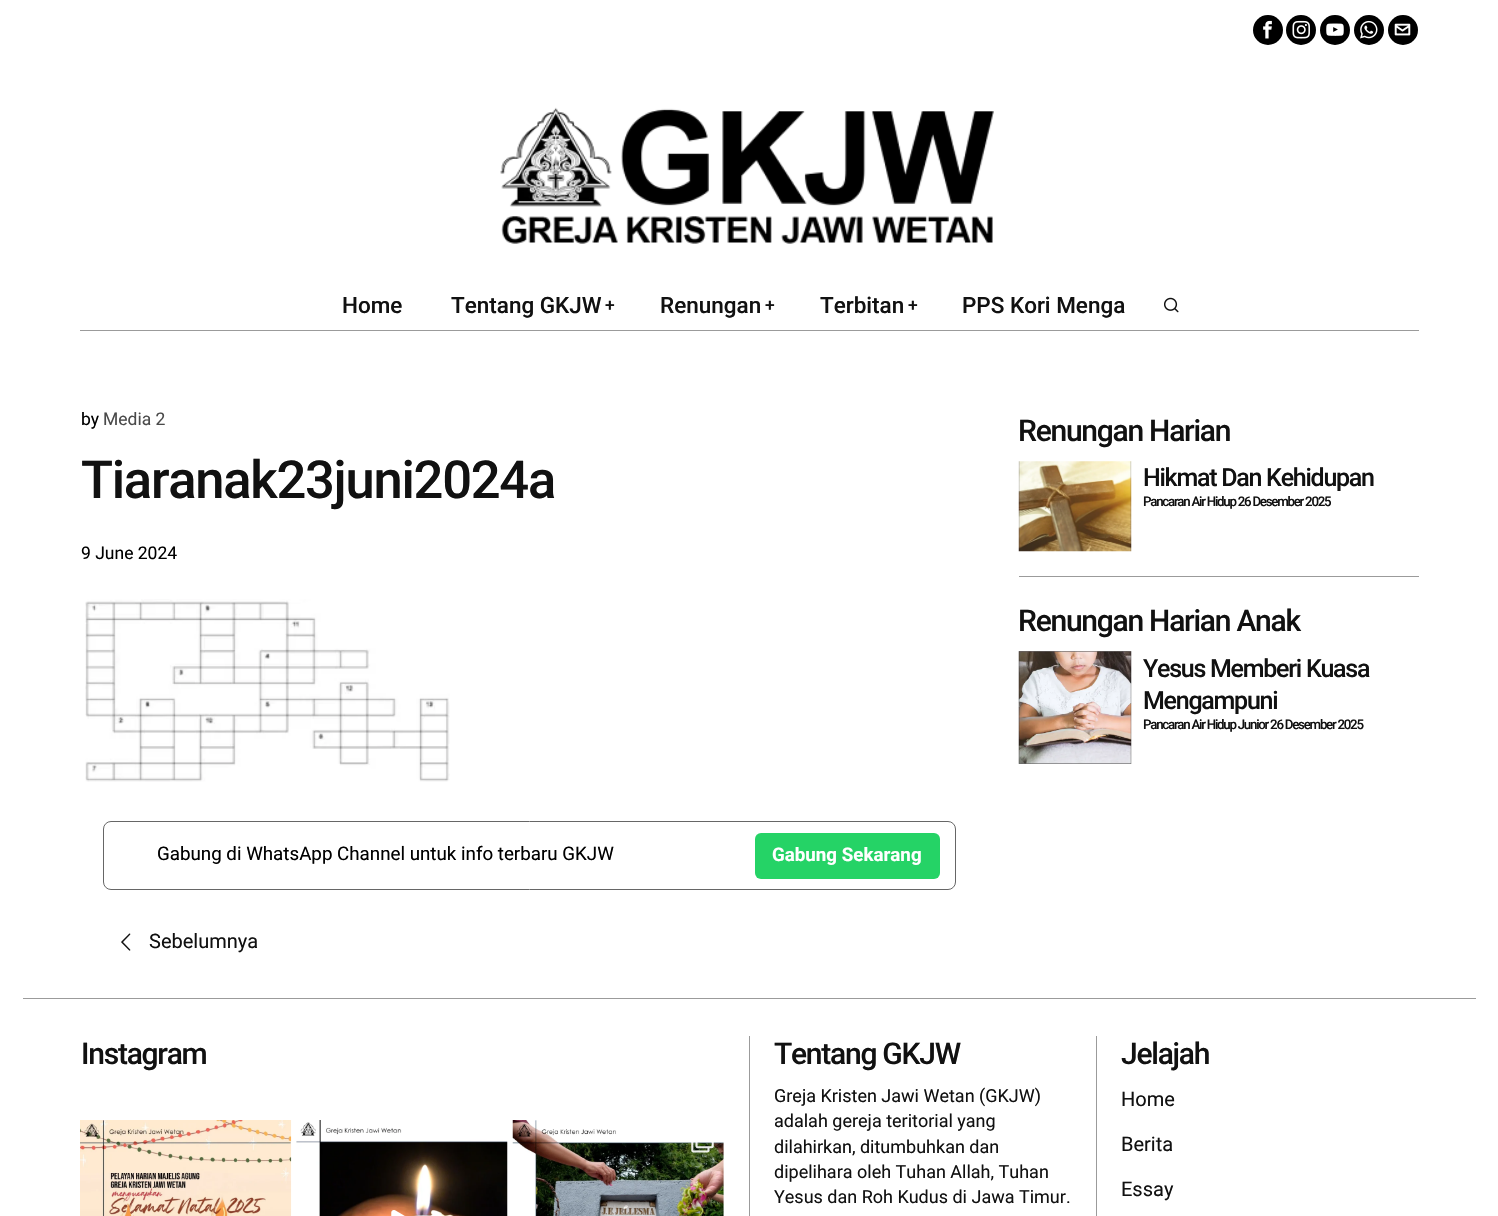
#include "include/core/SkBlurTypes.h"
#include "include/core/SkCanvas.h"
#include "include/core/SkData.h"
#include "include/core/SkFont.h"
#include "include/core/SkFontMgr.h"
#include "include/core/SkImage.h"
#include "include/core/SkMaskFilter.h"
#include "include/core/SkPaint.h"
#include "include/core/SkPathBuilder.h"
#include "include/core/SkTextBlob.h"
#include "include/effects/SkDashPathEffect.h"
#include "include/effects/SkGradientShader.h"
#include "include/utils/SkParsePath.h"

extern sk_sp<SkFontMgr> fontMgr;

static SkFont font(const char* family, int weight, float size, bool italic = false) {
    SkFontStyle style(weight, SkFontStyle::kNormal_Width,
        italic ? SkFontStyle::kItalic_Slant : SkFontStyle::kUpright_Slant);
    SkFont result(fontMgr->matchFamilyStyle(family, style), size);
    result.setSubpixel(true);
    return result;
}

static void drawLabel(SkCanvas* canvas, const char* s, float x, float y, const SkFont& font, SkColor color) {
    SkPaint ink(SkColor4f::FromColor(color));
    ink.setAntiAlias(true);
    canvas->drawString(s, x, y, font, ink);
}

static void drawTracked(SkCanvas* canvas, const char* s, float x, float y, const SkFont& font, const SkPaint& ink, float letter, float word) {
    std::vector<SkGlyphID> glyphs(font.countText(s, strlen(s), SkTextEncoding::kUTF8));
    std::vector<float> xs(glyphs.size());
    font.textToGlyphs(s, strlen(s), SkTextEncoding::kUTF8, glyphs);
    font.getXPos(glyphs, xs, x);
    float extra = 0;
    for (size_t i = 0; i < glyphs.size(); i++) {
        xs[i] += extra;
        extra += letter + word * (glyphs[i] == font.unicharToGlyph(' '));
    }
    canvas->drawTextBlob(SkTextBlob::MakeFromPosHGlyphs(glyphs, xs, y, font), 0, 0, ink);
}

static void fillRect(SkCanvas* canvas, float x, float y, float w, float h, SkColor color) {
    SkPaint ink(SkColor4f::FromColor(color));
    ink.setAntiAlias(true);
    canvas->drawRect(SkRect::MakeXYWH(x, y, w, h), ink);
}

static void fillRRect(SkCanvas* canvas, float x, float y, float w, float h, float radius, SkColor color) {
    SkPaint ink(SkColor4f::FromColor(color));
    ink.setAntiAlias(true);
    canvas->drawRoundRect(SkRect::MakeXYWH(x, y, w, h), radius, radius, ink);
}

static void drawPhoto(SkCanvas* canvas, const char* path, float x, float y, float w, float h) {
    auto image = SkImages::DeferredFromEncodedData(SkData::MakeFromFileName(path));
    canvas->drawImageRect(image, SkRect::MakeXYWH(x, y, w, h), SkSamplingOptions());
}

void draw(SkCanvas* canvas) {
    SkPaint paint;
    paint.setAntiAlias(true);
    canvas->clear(0xFFFFFFFF);
    paint.setColor(0xFF000000);
    canvas->drawCircle(1268, 30, 15, paint);
    drawPhoto(canvas, "assets/img1.png", 1263, 20, 9, 19);
    canvas->drawCircle(1301, 30, 15, paint);
    drawPhoto(canvas, "assets/img2.png", 1292, 20, 18, 19);
    canvas->drawCircle(1335, 30, 15, paint);
    drawPhoto(canvas, "assets/img3.png", 1326, 23, 18, 13);
    canvas->drawCircle(1369, 30, 15, paint);
    drawPhoto(canvas, "assets/img4.png", 1360, 20, 18, 19);
    canvas->drawCircle(1403, 30, 15, paint);
    drawPhoto(canvas, "assets/img5.png", 1394, 23, 17, 13);
    drawPhoto(canvas, "assets/img6.png", 500, 107, 494, 137);
    fillRect(canvas, 80, 330, 1339, 1, 0xFF9B9B9B);
    SkFont font1 = font("Roboto", 500, 22.5f);
    drawLabel(canvas, "Home", 342, 313, font1, 0xFF111111);
    drawLabel(canvas, "Tentang GKJW", 451, 313, font1, 0xFF111111);
    SkFont font2 = font("Roboto", 500, 17.5f);
    drawLabel(canvas, "+", 605, 311, font2, 0xFF111111);
    drawLabel(canvas, "Renungan", 660, 313, font1, 0xFF111111);
    drawLabel(canvas, "+", 765, 311, font2, 0xFF111111);
    drawLabel(canvas, "Terbitan", 820, 313, font1, 0xFF111111);
    drawLabel(canvas, "+", 908, 311, font2, 0xFF111111);
    drawLabel(canvas, "PPS Kori Menga", 962, 313, font1, 0xFF111111);
    drawPhoto(canvas, "assets/img7.png", 1164, 297, 15, 16);
    SkFont font3 = font("Roboto", 400, 17.5f);
    drawLabel(canvas, "by", 81, 425, font3, 0xFF000000);
    drawLabel(canvas, "Media 2", 103, 425, font3, 0xFF4A4A4A);
    SkFont font4 = font("Roboto", 500, 52.5f);
    paint.setColor(0xFF111111);
    drawTracked(canvas, "Tiaranak23juni2024a", 81, 498, font4, paint, -1.25f, 0);
    drawLabel(canvas, "9 June 2024", 81, 559, font3, 0xFF000000);
    drawPhoto(canvas, "assets/img8.png", 85, 599, 365, 183);
    paint.setStroke(true);
    paint.setStrokeWidth(1);
    paint.setColor(0xFF666666);
    canvas->drawRoundRect(SkRect::MakeXYWH(103.5f, 821.5f, 852, 68), 7.5f, 7.5f, paint);
    SkFont font5 = font("Roboto", 400, 18.75f);
    drawLabel(canvas, "Gabung di WhatsApp Channel untuk info terbaru GKJW", 157, 860, font5, 0xFF000000);
    fillRRect(canvas, 755, 833, 185, 46, 6, 0xFF25D366);
    SkFont font6 = font("Roboto", 700, 18.75f);
    drawLabel(canvas, "Gabung Sekarang", 772, 861, font6, 0xFFFFFFFF);
    drawPhoto(canvas, "assets/img9.png", 121, 933, 10, 18);
    SkFont font7 = font("Roboto", 400, 20);
    drawLabel(canvas, "Sebelumnya", 149, 948, font7, 0xFF111111);
    SkFont font8 = font("Roboto", 500, 30);
    paint.setStroke(false);
    paint.setColor(0xFF111111);
    drawTracked(canvas, "Renungan Harian", 1018, 441, font8, paint, -1.25f, 0);
    drawPhoto(canvas, "assets/img10.png", 1018, 461, 114, 91);
    SkFont font9 = font("Roboto", 500, 25);
    drawTracked(canvas, "Hikmat Dan Kehidupan", 1143, 486, font9, paint, -1.25f, 0);
    SkFont font10 = font("Roboto", 500, 13.3f);
    drawTracked(canvas, "Pancaran Air Hidup 26 Desember 2025", 1143, 506, font10, paint, -1.25f, 0);
    fillRect(canvas, 1019, 576, 400, 1, 0xFF9B9B9B);
    drawTracked(canvas, "Renungan Harian Anak", 1018, 631, font8, paint, -1.25f, 0);
    drawPhoto(canvas, "assets/img11.png", 1018, 651, 114, 113);
    drawTracked(canvas, "Yesus Memberi Kuasa", 1143, 677, font9, paint, -1.25f, 0);
    drawTracked(canvas, "Mengampuni", 1143, 709, font9, paint, -1.25f, 0);
    drawTracked(canvas, "Pancaran Air Hidup Junior 26 Desember 2025", 1143, 729, font10, paint, -1.25f, 0);
    fillRect(canvas, 23, 998, 1453, 1, 0xFF9B9B9B);
    drawTracked(canvas, "Instagram", 81, 1064, font8, paint, -1.25f, 0);
    drawPhoto(canvas, "assets/img12.png", 80, 1120, 212, 96);
    drawPhoto(canvas, "assets/img13.png", 296, 1120, 212, 96);
    drawPhoto(canvas, "assets/img14.png", 391, 1210, 14, 6);
    drawPhoto(canvas, "assets/img15.png", 512, 1120, 212, 96);
    drawPhoto(canvas, "assets/img16.png", 691, 1142, 23, 11);
    fillRect(canvas, 749, 1036, 1, 180, 0xFF9B9B9B);
    drawTracked(canvas, "Tentang GKJW", 774, 1064, font8, paint, -1.25f, 0);
    SkFont font11 = font("Roboto", 400, 18);
    drawLabel(canvas, "Greja Kristen Jawi Wetan (GKJW)", 774, 1102, font11, 0xFF111111);
    drawLabel(canvas, "adalah gereja teritorial yang", 774, 1127, font11, 0xFF111111);
    drawLabel(canvas, "dilahirkan, ditumbuhkan dan", 774, 1153, font11, 0xFF111111);
    drawLabel(canvas, "dipelihara oleh Tuhan Allah, Tuhan", 774, 1178, font11, 0xFF111111);
    drawLabel(canvas, "Yesus dan Roh Kudus di Jawa Timur.", 774, 1203, font11, 0xFF111111);
    fillRect(canvas, 1096, 1036, 1, 180, 0xFF9B9B9B);
    drawTracked(canvas, "Jelajah", 1121, 1064, font8, paint, -1.25f, 0);
    drawLabel(canvas, "Home", 1121, 1106, font7, 0xFF111111);
    drawLabel(canvas, "Berita", 1121, 1151, font7, 0xFF111111);
    drawLabel(canvas, "Essay", 1121, 1196, font7, 0xFF111111);
}
